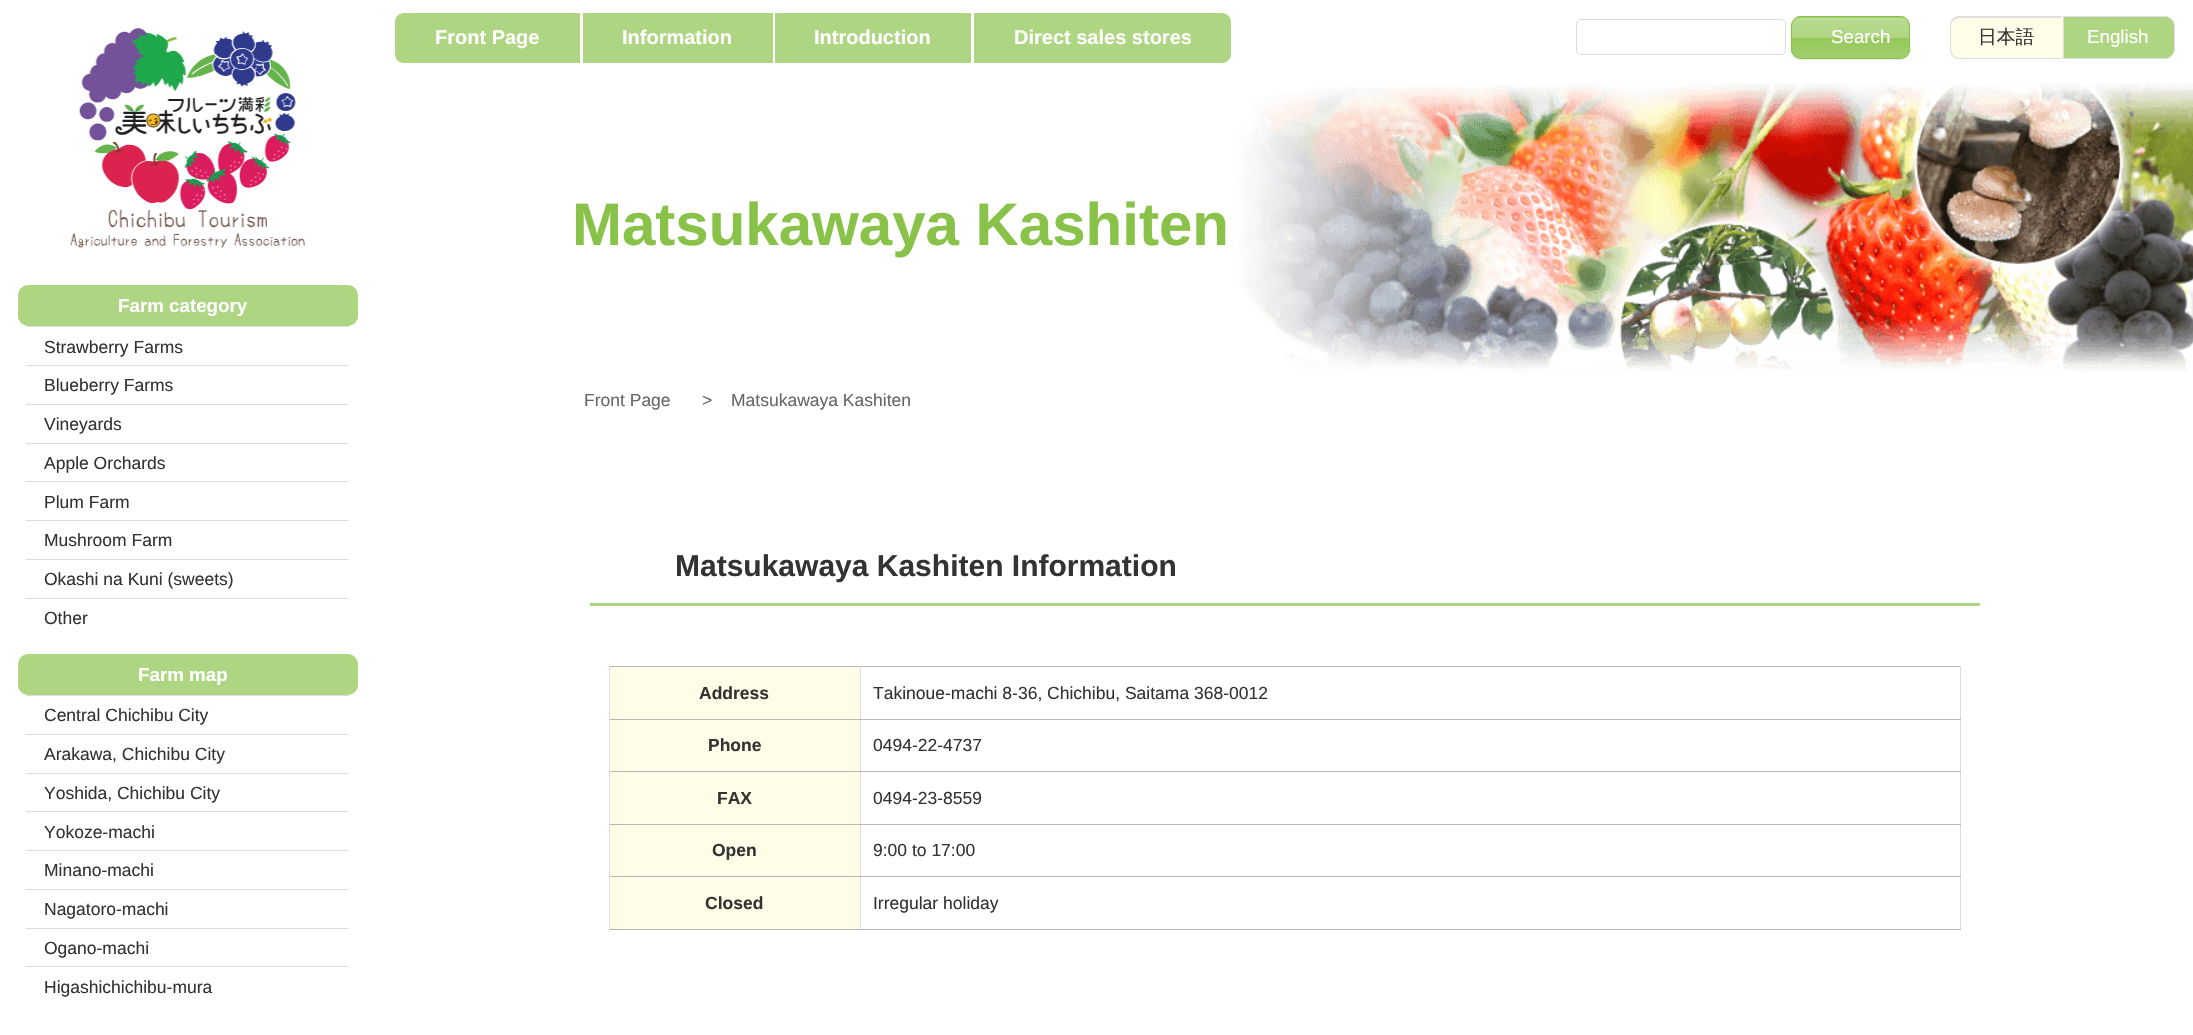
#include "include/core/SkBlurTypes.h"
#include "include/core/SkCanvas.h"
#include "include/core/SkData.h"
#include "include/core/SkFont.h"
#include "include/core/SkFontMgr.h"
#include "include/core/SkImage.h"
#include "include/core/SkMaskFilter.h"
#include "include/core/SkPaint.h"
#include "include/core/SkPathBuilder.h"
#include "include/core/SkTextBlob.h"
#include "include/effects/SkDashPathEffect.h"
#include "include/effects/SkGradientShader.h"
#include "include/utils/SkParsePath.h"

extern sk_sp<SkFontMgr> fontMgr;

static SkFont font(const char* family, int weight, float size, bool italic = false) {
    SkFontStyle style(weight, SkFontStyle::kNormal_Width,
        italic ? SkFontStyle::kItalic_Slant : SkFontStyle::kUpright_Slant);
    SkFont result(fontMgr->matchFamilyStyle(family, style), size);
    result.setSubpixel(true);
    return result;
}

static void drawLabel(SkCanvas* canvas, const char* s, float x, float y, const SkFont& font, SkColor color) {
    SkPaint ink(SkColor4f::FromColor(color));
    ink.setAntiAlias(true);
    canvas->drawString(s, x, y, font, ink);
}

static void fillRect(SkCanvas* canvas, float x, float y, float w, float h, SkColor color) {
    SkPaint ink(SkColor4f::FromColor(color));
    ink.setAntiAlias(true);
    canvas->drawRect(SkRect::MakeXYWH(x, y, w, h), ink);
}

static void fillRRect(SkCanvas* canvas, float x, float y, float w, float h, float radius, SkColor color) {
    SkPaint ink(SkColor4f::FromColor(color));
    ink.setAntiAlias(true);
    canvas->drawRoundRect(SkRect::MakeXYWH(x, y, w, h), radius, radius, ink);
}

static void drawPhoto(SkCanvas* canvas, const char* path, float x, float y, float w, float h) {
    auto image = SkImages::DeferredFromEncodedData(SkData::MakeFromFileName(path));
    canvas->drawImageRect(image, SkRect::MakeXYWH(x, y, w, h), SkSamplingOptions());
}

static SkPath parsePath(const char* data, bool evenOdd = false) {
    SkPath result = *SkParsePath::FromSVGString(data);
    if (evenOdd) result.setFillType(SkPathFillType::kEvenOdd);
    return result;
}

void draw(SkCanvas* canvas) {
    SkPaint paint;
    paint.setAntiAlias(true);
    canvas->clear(0xFFFFFFFF);
    paint.setColor(0xFFAED581);
    canvas->drawPath(parsePath("M404 13H580V63H404C399 63 395 59 395 54V22C395 17 399 13 404 13Z"), paint);
    SkFont font1 = font("Liberation Sans", 700, 20);
    drawLabel(canvas, "Front Page", 435, 44, font1, 0xFFFFFFFF);
    fillRect(canvas, 583, 13, 190, 50, 0xFFAED581);
    drawLabel(canvas, "Information", 622, 44, font1, 0xFFFFFFFF);
    fillRect(canvas, 775, 13, 196, 50, 0xFFAED581);
    drawLabel(canvas, "Introduction", 814, 44, font1, 0xFFFFFFFF);
    canvas->drawPath(parsePath("M974 13H1222C1227 13 1231 17 1231 22V54C1231 59 1227 63 1222 63H974Z"), paint);
    drawLabel(canvas, "Direct sales stores", 1014, 44, font1, 0xFFFFFFFF);
    paint.setStroke(true);
    paint.setStrokeWidth(1);
    paint.setColor(0xFFDDDDDD);
    canvas->drawRoundRect(SkRect::MakeXYWH(1576.5f, 19.5f, 209, 35), 4.5f, 4.5f, paint);
    paint.setStroke(false);
    paint.setColor(0x26333333);
    paint.setMaskFilter(SkMaskFilter::MakeBlur(kNormal_SkBlurStyle, 1));
    canvas->drawRoundRect(SkRect::MakeXYWH(1791, 18, 119, 42), 10, 10, paint);
    paint.setMaskFilter(nullptr);
    canvas->save();
    canvas->clipPath(parsePath("M1801 16H1900C1905.5 16 1910 20.5 1910 26V49C1910 54.5 1905.5 59 1900 59H1801C1795.5 59 1791 54.5 1791 49V26C1791 20.5 1795.5 16 1801 16Z"), true);
    {
        const SkColor colors[] = {0xFFBADB94, 0xFFAED581, 0xFF95C85B, 0xFFA2CF6E};
        const float stops[] = {0, 0.5f, 0.5f, 1};
        const SkPoint ends[] = {{1851, -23}, {1851, 18}};
        paint.setShader(SkGradientShader::MakeLinear(ends, colors, stops, 4, SkTileMode::kClamp));
        paint.setAlpha(255);
    }
    canvas->drawRect(SkRect::MakeXYWH(1791, 16, 119, 2), paint);
    {
        const SkColor colors[] = {0xFFBADB94, 0xFFAED581, 0xFF95C85B, 0xFFA2CF6E};
        const float stops[] = {0, 0.5f, 0.5f, 1};
        const SkPoint ends[] = {{1851, 17}, {1851, 58}};
        paint.setShader(SkGradientShader::MakeLinear(ends, colors, stops, 4, SkTileMode::kClamp));
        paint.setAlpha(255);
    }
    canvas->drawRect(SkRect::MakeXYWH(1791, 18, 119, 40), paint);
    canvas->restore();
    paint.setShader(nullptr);
    paint.setColor(0xFFC0DF9E);
    canvas->drawPath(parsePath("M1801 19H1901C1905 19 1908 21 1909 26C1908 21 1905 18 1900 18H1802C1800 18 1798 19 1796 20Z"), paint);
    paint.setStroke(true);
    paint.setColor(0xFF89C248);
    canvas->drawRoundRect(SkRect::MakeXYWH(1791.5f, 16.5f, 118, 42), 9.5f, 9.5f, paint);
    SkFont font2 = font("Liberation Sans", 400, 18.75f);
    drawLabel(canvas, "Search", 1831, 43, font2, 0xFFFFFFFF);
    paint.setStroke(false);
    paint.setColor(0xFFFFFDE7);
    canvas->drawPath(parsePath("M1960 16H2063V59H1960C1954.5 59 1950 54.5 1950 49V26C1950 20.5 1954.5 16 1960 16Z"), paint);
    paint.setColor(0xFFDDDDDD);
    canvas->drawPath(parsePath("M1959 16H2062V59H1959C1954 59 1950 55 1950 49V26C1950 20 1954 16 1959 16ZM1959 18H2062V58H1959C1955 58 1951 54 1951 49V26C1951 21 1955 18 1959 18Z", true), paint);
    SkFont font3 = font("WenQuanYi Zen Hei", 500, 18.75f);
    drawLabel(canvas, "日本語", 1978, 43, font3, 0xFF333333);
    paint.setColor(0xFFAED581);
    canvas->drawPath(parsePath("M2063.5 16.5H2165C2170 16.5 2174.5 21 2174.5 26V49C2174.5 54 2170 58.5 2165 58.5H2063.5Z"), paint);
    paint.setStroke(true);
    paint.setColor(0xFFDDDDDD);
    canvas->drawPath(parsePath("M2063.5 16.5H2165C2170 16.5 2174.5 21 2174.5 26V49C2174.5 54 2170 58.5 2165 58.5H2063.5Z"), paint);
    drawLabel(canvas, "English", 2087, 43, font2, 0xFFFFFFFF);
    SkFont font4 = font("Liberation Sans", 700, 60);
    drawLabel(canvas, "Matsukawaya Kashiten", 572, 245, font4, 0xFF89C248);
    drawPhoto(canvas, "assets/img1.png", 1238, 82, 955, 291);
    drawPhoto(canvas, "assets/img2.png", 70, 28, 235, 220);
    fillRRect(canvas, 18, 285, 340, 41, 10, 0xFFAED581);
    SkFont font5 = font("Liberation Sans", 700, 18.75f);
    drawLabel(canvas, "Farm category", 118, 312, font5, 0xFFFFFFFF);
    fillRect(canvas, 26, 326, 323, 1, 0xFFDDDDDD);
    SkFont font6 = font("Liberation Sans", 400, 17.5f);
    drawLabel(canvas, "Strawberry Farms", 44, 353, font6, 0xFF333333);
    fillRect(canvas, 26, 365, 323, 1, 0xFFDDDDDD);
    drawLabel(canvas, "Blueberry Farms", 44, 391, font6, 0xFF333333);
    fillRect(canvas, 26, 404, 323, 1, 0xFFDDDDDD);
    drawLabel(canvas, "Vineyards", 44, 430, font6, 0xFF333333);
    fillRect(canvas, 26, 443, 323, 1, 0xFFDDDDDD);
    drawLabel(canvas, "Apple Orchards", 44, 469, font6, 0xFF333333);
    fillRect(canvas, 26, 481, 323, 1, 0xFFDDDDDD);
    drawLabel(canvas, "Plum Farm", 44, 508, font6, 0xFF333333);
    fillRect(canvas, 26, 520, 323, 1, 0xFFDDDDDD);
    drawLabel(canvas, "Mushroom Farm", 44, 546, font6, 0xFF333333);
    fillRect(canvas, 26, 559, 323, 1, 0xFFDDDDDD);
    drawLabel(canvas, "Okashi na Kuni (sweets)", 44, 585, font6, 0xFF333333);
    fillRect(canvas, 26, 598, 323, 1, 0xFFDDDDDD);
    drawLabel(canvas, "Other", 44, 624, font6, 0xFF333333);
    fillRRect(canvas, 18, 654, 340, 41, 10, 0xFFAED581);
    drawLabel(canvas, "Farm map", 138, 681, font5, 0xFFFFFFFF);
    fillRect(canvas, 26, 695, 323, 1, 0xFFDDDDDD);
    drawLabel(canvas, "Central Chichibu City", 44, 721, font6, 0xFF333333);
    fillRect(canvas, 26, 734, 323, 1, 0xFFDDDDDD);
    drawLabel(canvas, "Arakawa, Chichibu City", 44, 760, font6, 0xFF333333);
    fillRect(canvas, 26, 773, 323, 1, 0xFFDDDDDD);
    drawLabel(canvas, "Yoshida, Chichibu City", 44, 799, font6, 0xFF333333);
    fillRect(canvas, 26, 811, 323, 1, 0xFFDDDDDD);
    drawLabel(canvas, "Yokoze-machi", 44, 838, font6, 0xFF333333);
    fillRect(canvas, 26, 850, 323, 1, 0xFFDDDDDD);
    drawLabel(canvas, "Minano-machi", 44, 876, font6, 0xFF333333);
    fillRect(canvas, 26, 889, 323, 1, 0xFFDDDDDD);
    drawLabel(canvas, "Nagatoro-machi", 44, 915, font6, 0xFF333333);
    fillRect(canvas, 26, 928, 323, 1, 0xFFDDDDDD);
    drawLabel(canvas, "Ogano-machi", 44, 954, font6, 0xFF333333);
    fillRect(canvas, 26, 966, 323, 1, 0xFFDDDDDD);
    drawLabel(canvas, "Higashichichibu-mura", 44, 993, font6, 0xFF333333);
    drawLabel(canvas, "Front Page", 584, 406, font6, 0xFF666666);
    drawLabel(canvas, ">", 702, 406, font6, 0xFF666666);
    drawLabel(canvas, "Matsukawaya Kashiten", 731, 406, font6, 0xFF666666);
    fillRect(canvas, 590, 603, 1390, 3, 0xFFAED581);
    SkFont font7 = font("Liberation Sans", 700, 30);
    drawLabel(canvas, "Matsukawaya Kashiten Information", 675, 576, font7, 0xFF333333);
    fillRect(canvas, 610, 668, 250, 51, 0xFFFFFDE7);
    fillRect(canvas, 609, 666, 1352, 1, 0xFFB7B7B7);
    fillRect(canvas, 1960, 719, 1, 211, 0xFFDDDDDD);
    fillRect(canvas, 1960, 666, 1, 54, 0xFFDDDDDD);
    fillRect(canvas, 860, 929, 1101, 1, 0xFFB7B7B7);
    fillRect(canvas, 860, 876, 1, 54, 0xFFDDDDDD);
    fillRect(canvas, 860, 876, 1101, 1, 0xFFB7B7B7);
    fillRect(canvas, 860, 824, 1, 54, 0xFFDDDDDD);
    fillRect(canvas, 860, 824, 1101, 1, 0xFFB7B7B7);
    fillRect(canvas, 860, 771, 1, 54, 0xFFDDDDDD);
    fillRect(canvas, 860, 771, 1101, 1, 0xFFB7B7B7);
    fillRect(canvas, 860, 719, 1, 54, 0xFFDDDDDD);
    fillRect(canvas, 860, 719, 1101, 1, 0xFFB7B7B7);
    fillRect(canvas, 860, 666, 1, 54, 0xFFDDDDDD);
    fillRect(canvas, 610, 720, 250, 104, 0xFFFFFDE7);
    fillRect(canvas, 610, 825, 250, 104, 0xFFFFFDE7);
    fillRect(canvas, 609, 929, 252, 1, 0xFFB7B7B7);
    fillRect(canvas, 609, 876, 1, 54, 0xFFDDDDDD);
    fillRect(canvas, 609, 876, 252, 1, 0xFFB7B7B7);
    fillRect(canvas, 609, 824, 1, 54, 0xFFDDDDDD);
    fillRect(canvas, 609, 824, 252, 1, 0xFFB7B7B7);
    fillRect(canvas, 609, 771, 1, 54, 0xFFDDDDDD);
    fillRect(canvas, 609, 771, 252, 1, 0xFFB7B7B7);
    fillRect(canvas, 609, 719, 1, 54, 0xFFDDDDDD);
    fillRect(canvas, 609, 719, 252, 1, 0xFFB7B7B7);
    fillRect(canvas, 609, 666, 1, 54, 0xFFDDDDDD);
    SkFont font8 = font("Liberation Sans", 700, 17.5f);
    drawLabel(canvas, "Address", 699, 699, font8, 0xFF333333);
    drawLabel(canvas, "Takinoue-machi 8-36, Chichibu, Saitama 368-0012", 873, 699, font6, 0xFF333333);
    drawLabel(canvas, "Phone", 708, 751, font8, 0xFF333333);
    drawLabel(canvas, "0494-22-4737", 873, 751, font6, 0xFF333333);
    drawLabel(canvas, "FAX", 717, 804, font8, 0xFF333333);
    drawLabel(canvas, "0494-23-8559", 873, 804, font6, 0xFF333333);
    drawLabel(canvas, "Open", 712, 856, font8, 0xFF333333);
    drawLabel(canvas, "9:00 to 17:00", 873, 856, font6, 0xFF333333);
    drawLabel(canvas, "Closed", 705, 909, font8, 0xFF333333);
    drawLabel(canvas, "Irregular holiday", 873, 909, font6, 0xFF333333);
}
